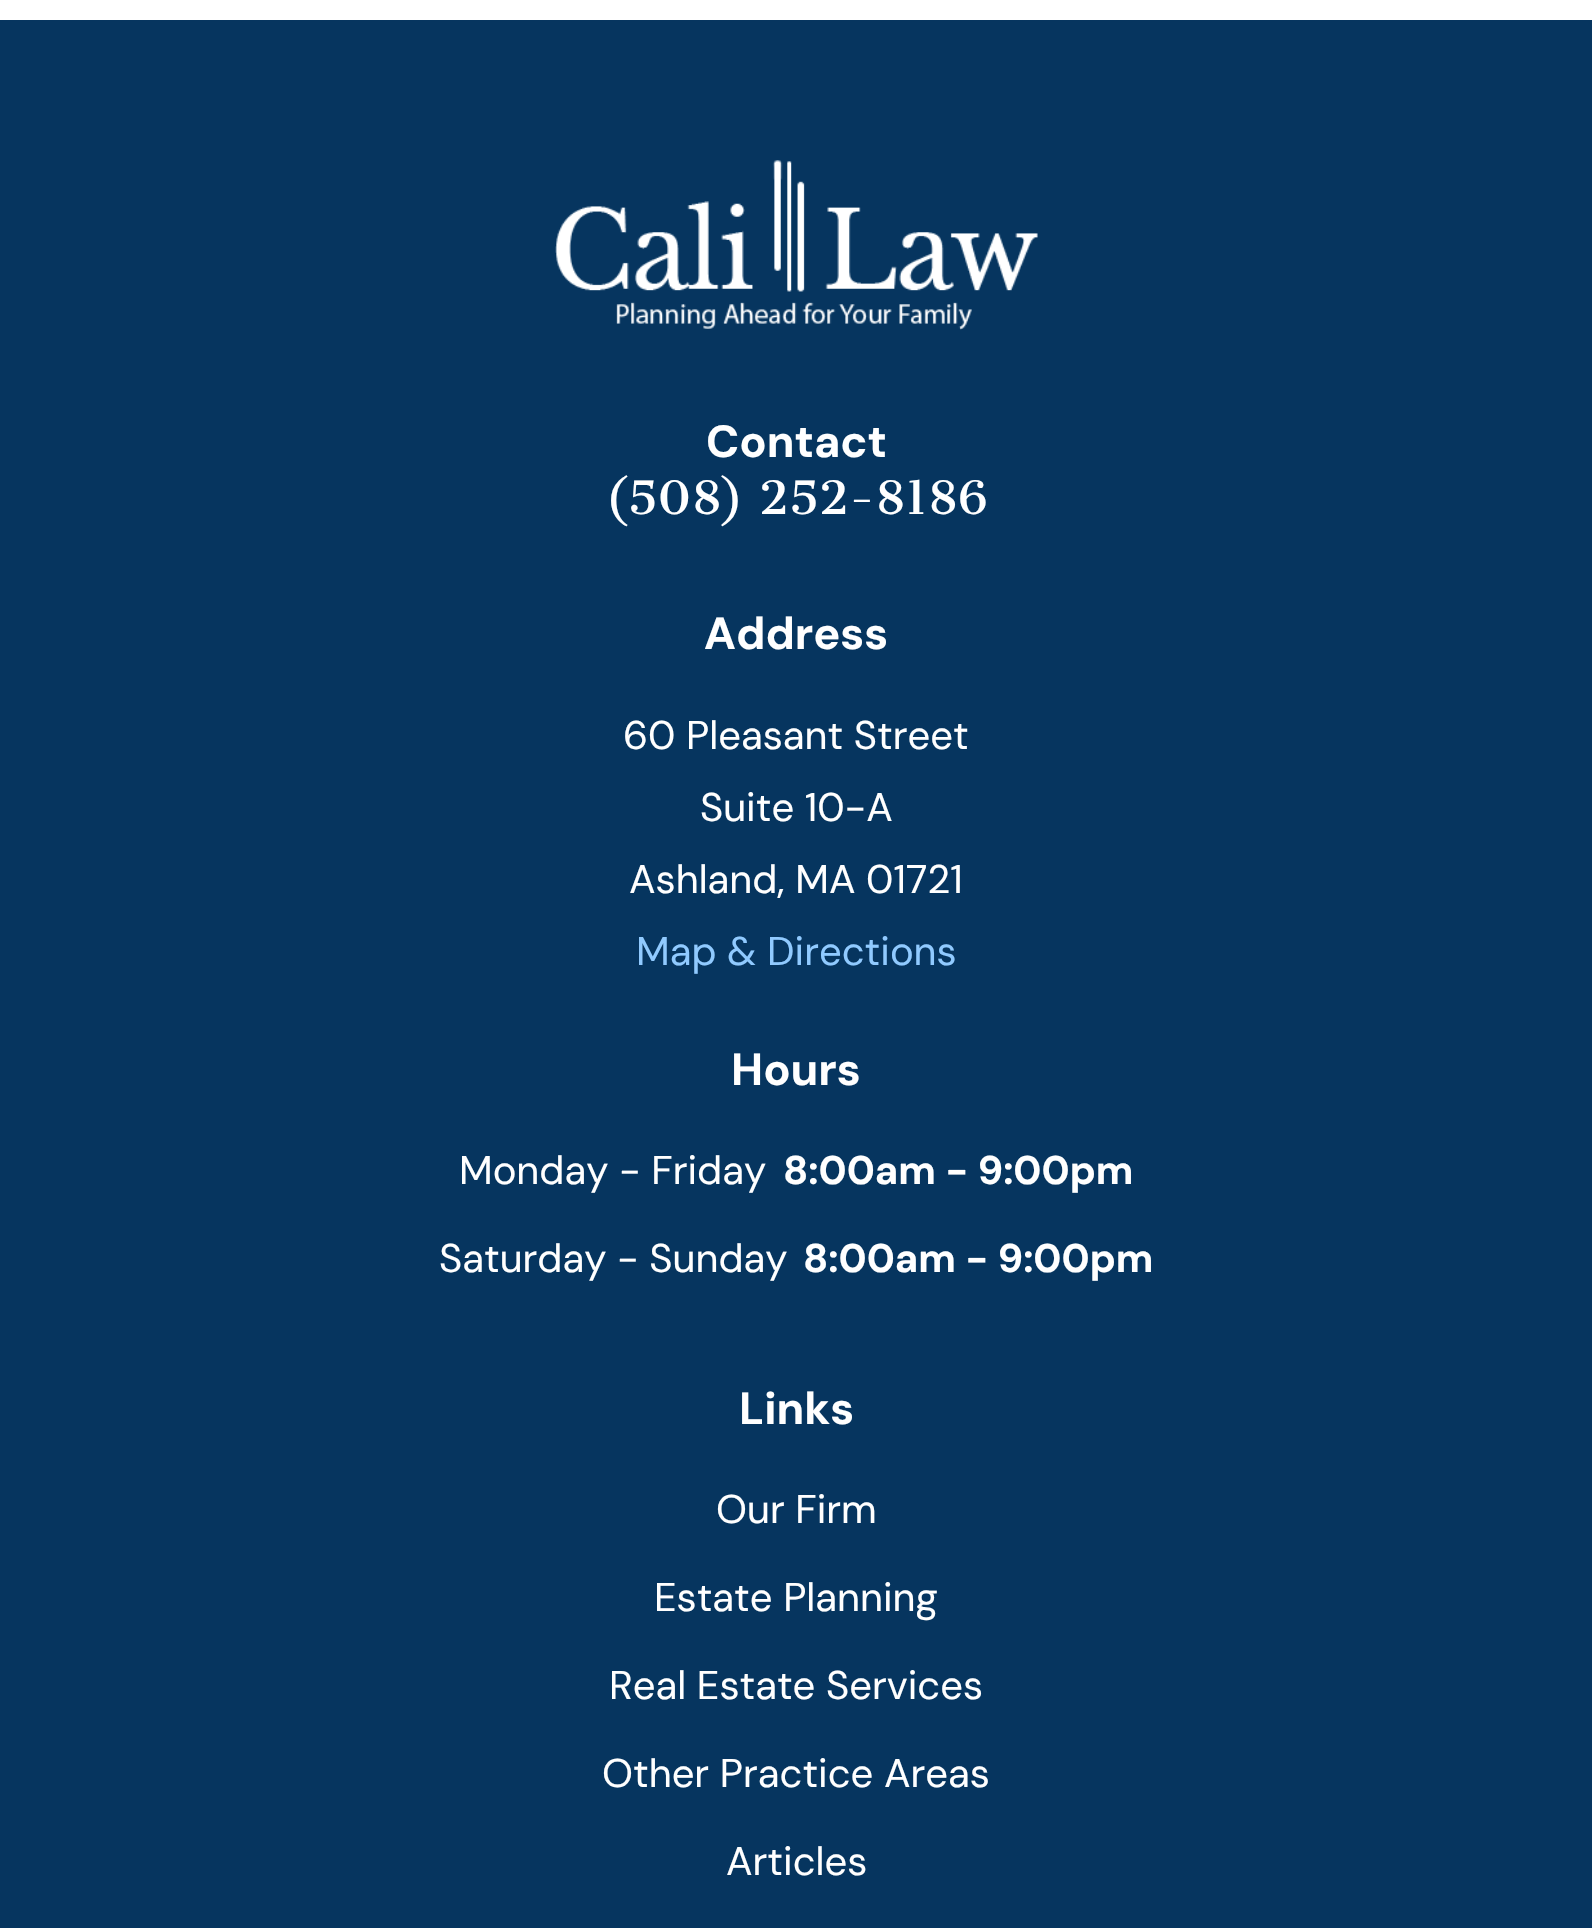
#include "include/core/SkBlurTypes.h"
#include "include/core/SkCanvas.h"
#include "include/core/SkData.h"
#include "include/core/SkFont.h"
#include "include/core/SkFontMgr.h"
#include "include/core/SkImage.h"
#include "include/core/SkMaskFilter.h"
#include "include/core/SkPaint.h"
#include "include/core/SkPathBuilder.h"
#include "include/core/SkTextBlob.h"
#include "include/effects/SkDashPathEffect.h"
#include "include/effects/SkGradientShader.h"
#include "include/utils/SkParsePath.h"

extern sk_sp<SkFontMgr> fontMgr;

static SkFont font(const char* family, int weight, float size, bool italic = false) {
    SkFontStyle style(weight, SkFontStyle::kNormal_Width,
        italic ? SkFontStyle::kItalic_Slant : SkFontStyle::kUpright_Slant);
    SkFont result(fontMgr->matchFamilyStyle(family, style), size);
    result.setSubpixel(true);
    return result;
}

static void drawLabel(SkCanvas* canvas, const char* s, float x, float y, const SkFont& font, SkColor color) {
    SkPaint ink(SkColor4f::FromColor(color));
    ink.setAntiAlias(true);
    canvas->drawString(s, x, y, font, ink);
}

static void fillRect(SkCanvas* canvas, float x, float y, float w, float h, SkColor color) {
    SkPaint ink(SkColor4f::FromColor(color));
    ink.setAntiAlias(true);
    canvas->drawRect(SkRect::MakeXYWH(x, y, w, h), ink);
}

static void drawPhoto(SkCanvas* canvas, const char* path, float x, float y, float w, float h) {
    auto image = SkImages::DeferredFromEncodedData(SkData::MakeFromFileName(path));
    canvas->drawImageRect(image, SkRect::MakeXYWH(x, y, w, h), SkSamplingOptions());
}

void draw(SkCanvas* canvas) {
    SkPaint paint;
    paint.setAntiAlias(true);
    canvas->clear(0xFFFFFFFF);
    fillRect(canvas, 0, 20, 1592, 1908, 0xFF06355F);
    drawPhoto(canvas, "assets/img1.png", 555, 160, 483, 170);
    SkFont font1 = font("DM Sans", 700, 45);
    drawLabel(canvas, "Contact", 706, 457, font1, 0xFFFFFFFF);
    SkFont font2 = font("Cantata One", 400, 45);
    drawLabel(canvas, "(508) 252-8186", 605, 514, font2, 0xFFFFFFFF);
    drawLabel(canvas, "Address", 704, 649, font1, 0xFFFFFFFF);
    SkFont font3 = font("DM Sans", 400, 40);
    drawLabel(canvas, "60 Pleasant Street", 623, 749, font3, 0xFFFFFFFF);
    drawLabel(canvas, "Suite 10-A", 700, 821, font3, 0xFFFFFFFF);
    drawLabel(canvas, "Ashland, MA 01721", 629, 893, font3, 0xFFFFFFFF);
    drawLabel(canvas, "Map & Directions", 636, 965, font3, 0xFF90CAFF);
    drawLabel(canvas, "Hours", 731, 1085, font1, 0xFFFFFFFF);
    drawLabel(canvas, "Monday - Friday", 459, 1184, font3, 0xFFFFFFFF);
    SkFont font4 = font("DM Sans", 700, 40);
    drawLabel(canvas, "8:00am - 9:00pm", 783, 1184, font4, 0xFFFFFFFF);
    drawLabel(canvas, "Saturday - Sunday", 439, 1272, font3, 0xFFFFFFFF);
    drawLabel(canvas, "8:00am - 9:00pm", 803, 1272, font4, 0xFFFFFFFF);
    drawLabel(canvas, "Links", 739, 1424, font1, 0xFFFFFFFF);
    drawLabel(canvas, "Our Firm", 716, 1523, font3, 0xFFFFFFFF);
    drawLabel(canvas, "Estate Planning", 654, 1611, font3, 0xFFFFFFFF);
    drawLabel(canvas, "Real Estate Services", 609, 1699, font3, 0xFFFFFFFF);
    drawLabel(canvas, "Other Practice Areas", 602, 1787, font3, 0xFFFFFFFF);
    drawLabel(canvas, "Articles", 726, 1875, font3, 0xFFFFFFFF);
}
